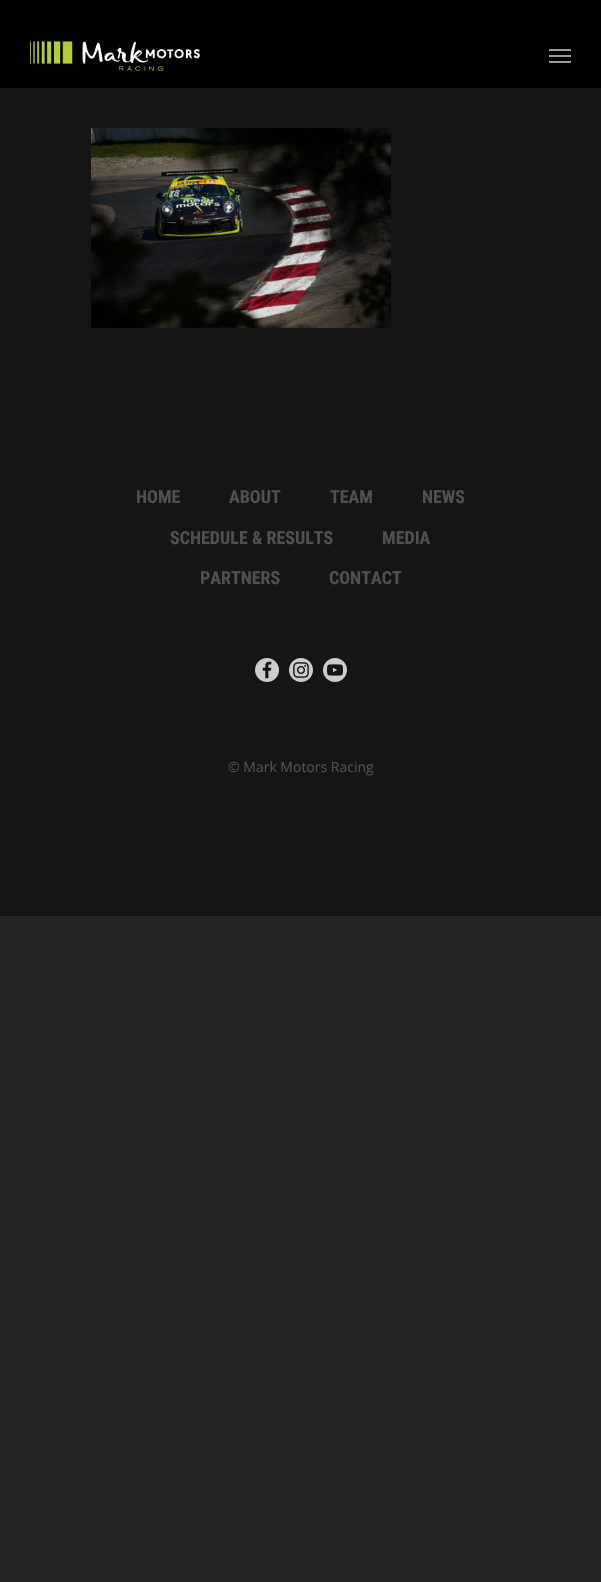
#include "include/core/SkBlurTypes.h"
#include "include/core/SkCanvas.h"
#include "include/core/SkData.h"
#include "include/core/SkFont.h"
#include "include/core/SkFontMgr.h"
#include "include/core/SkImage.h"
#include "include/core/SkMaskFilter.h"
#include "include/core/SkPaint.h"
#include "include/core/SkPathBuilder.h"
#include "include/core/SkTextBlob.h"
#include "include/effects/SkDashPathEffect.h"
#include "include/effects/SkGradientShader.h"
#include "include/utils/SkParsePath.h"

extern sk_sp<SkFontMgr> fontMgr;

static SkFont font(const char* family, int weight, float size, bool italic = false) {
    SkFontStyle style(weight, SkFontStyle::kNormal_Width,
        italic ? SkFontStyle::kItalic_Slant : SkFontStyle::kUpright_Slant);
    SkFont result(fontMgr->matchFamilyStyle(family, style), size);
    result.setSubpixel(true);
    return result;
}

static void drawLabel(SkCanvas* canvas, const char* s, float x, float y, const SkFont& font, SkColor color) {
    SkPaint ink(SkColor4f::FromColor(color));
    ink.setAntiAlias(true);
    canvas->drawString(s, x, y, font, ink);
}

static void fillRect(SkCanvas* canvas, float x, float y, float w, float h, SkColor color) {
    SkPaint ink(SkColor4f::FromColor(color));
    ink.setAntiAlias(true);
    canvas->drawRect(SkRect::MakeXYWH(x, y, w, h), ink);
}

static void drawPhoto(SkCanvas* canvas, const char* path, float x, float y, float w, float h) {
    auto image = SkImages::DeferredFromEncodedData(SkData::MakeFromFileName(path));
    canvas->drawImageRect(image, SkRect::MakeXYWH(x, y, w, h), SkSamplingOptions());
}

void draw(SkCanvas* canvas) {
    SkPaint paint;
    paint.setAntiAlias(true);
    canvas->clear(0xFF252525);
    fillRect(canvas, 0, 0, 601, 88, 0xFF000000);
    drawPhoto(canvas, "assets/img1.png", 30, 41, 170, 30);
    fillRect(canvas, 549, 49, 22, 2, 0xFF999999);
    fillRect(canvas, 549, 61, 22, 2, 0xFF999999);
    fillRect(canvas, 549, 55, 22, 2, 0xFF999999);
    fillRect(canvas, 0, 88, 601, 828, 0xFF161515);
    drawPhoto(canvas, "assets/img2.png", 91, 128, 300, 200);
    SkFont font1 = font("Roboto Condensed", 700, 18);
    drawLabel(canvas, "HOME", 136, 503, font1, 0xFF505050);
    drawLabel(canvas, "ABOUT", 229, 503, font1, 0xFF505050);
    drawLabel(canvas, "TEAM", 330, 503, font1, 0xFF505050);
    drawLabel(canvas, "NEWS", 422, 503, font1, 0xFF505050);
    drawLabel(canvas, "SCHEDULE & RESULTS", 170, 544, font1, 0xFF505050);
    drawLabel(canvas, "MEDIA", 382, 544, font1, 0xFF505050);
    drawLabel(canvas, "PARTNERS", 200, 584, font1, 0xFF505050);
    drawLabel(canvas, "CONTACT", 329, 584, font1, 0xFF505050);
    drawPhoto(canvas, "assets/img3.png", 255, 658, 24, 24);
    drawPhoto(canvas, "assets/img4.png", 289, 658, 24, 24);
    drawPhoto(canvas, "assets/img5.png", 323, 658, 24, 24);
    SkFont font2 = font("Open Sans", 400, 14);
    drawLabel(canvas, "© Mark Motors Racing", 228, 772, font2, 0xFF505050);
}
